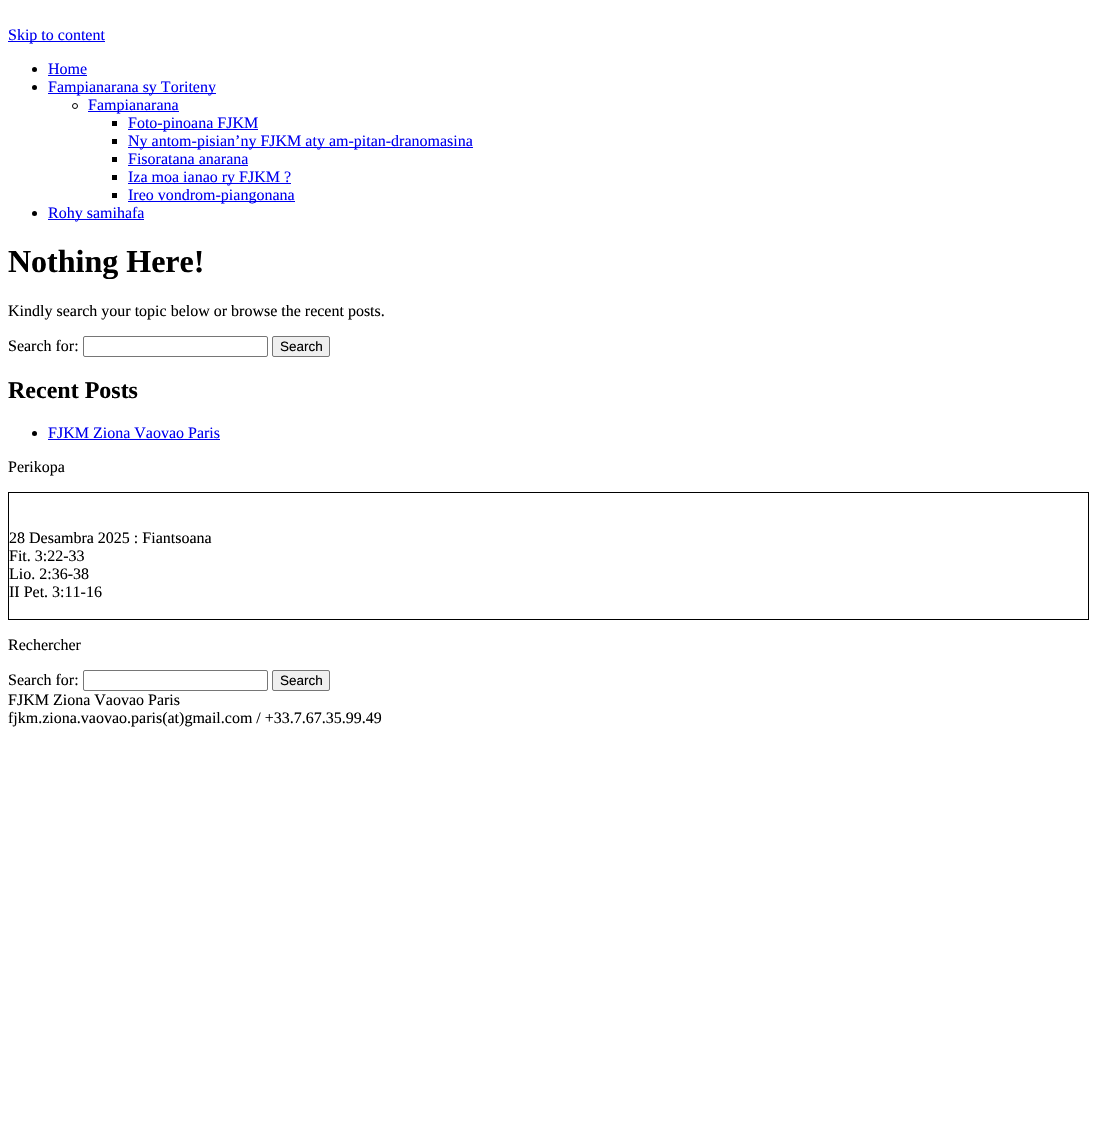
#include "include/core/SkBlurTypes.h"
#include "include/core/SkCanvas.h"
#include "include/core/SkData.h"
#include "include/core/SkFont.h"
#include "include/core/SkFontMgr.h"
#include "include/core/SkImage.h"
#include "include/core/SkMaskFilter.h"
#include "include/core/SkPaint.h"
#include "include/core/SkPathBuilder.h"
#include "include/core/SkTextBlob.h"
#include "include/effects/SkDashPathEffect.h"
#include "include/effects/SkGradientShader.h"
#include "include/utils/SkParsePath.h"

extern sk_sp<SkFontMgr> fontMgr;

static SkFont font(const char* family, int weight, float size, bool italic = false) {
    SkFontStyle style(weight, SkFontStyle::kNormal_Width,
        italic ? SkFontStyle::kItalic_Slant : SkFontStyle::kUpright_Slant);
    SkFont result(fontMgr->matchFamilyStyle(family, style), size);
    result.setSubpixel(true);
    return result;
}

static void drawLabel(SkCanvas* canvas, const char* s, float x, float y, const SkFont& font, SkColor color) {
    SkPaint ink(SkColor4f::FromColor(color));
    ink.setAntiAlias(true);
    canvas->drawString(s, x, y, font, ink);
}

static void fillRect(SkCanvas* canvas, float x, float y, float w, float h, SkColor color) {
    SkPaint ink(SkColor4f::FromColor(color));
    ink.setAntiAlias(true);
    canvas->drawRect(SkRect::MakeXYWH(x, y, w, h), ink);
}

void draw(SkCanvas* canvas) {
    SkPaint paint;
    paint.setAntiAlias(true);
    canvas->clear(0xFFFFFFFF);
    fillRect(canvas, 8, 41, 97, 1, 0xFF0000EE);
    SkFont font1 = font("Liberation Serif", 400, 16);
    drawLabel(canvas, "Skip to content", 8, 40, font1, 0xFF0000EE);
    paint.setColor(0xFF000000);
    canvas->drawCircle(34.5f, 69.5f, 2.5f, paint);
    drawLabel(canvas, "Home", 48, 74, font1, 0xFF0000EE);
    fillRect(canvas, 48, 75, 39, 1, 0xFF0000EE);
    canvas->drawCircle(34.5f, 87.5f, 2.5f, paint);
    fillRect(canvas, 48, 93, 168, 1, 0xFF0000EE);
    drawLabel(canvas, "Fampianarana sy Toriteny", 48, 92, font1, 0xFF0000EE);
    paint.setStroke(true);
    paint.setStrokeWidth(1);
    canvas->drawCircle(75, 106, 2.5f, paint);
    fillRect(canvas, 88, 111, 91, 1, 0xFF0000EE);
    drawLabel(canvas, "Fampianarana", 88, 110, font1, 0xFF0000EE);
    fillRect(canvas, 112, 121, 5, 5, 0xFF000000);
    fillRect(canvas, 128, 129, 130, 1, 0xFF0000EE);
    drawLabel(canvas, "Foto-pinoana FJKM", 128, 128, font1, 0xFF0000EE);
    fillRect(canvas, 112, 139, 5, 5, 0xFF000000);
    fillRect(canvas, 128, 147, 345, 1, 0xFF0000EE);
    drawLabel(canvas, "Ny antom-pisian’ny FJKM aty am-pitan-dranomasina", 128, 146, font1, 0xFF0000EE);
    fillRect(canvas, 112, 157, 5, 5, 0xFF000000);
    drawLabel(canvas, "Fisoratana anarana", 128, 164, font1, 0xFF0000EE);
    fillRect(canvas, 128, 165, 120, 1, 0xFF0000EE);
    fillRect(canvas, 112, 175, 5, 5, 0xFF000000);
    fillRect(canvas, 128, 183, 163, 1, 0xFF0000EE);
    drawLabel(canvas, "Iza moa ianao ry FJKM ?", 128, 182, font1, 0xFF0000EE);
    fillRect(canvas, 112, 193, 5, 5, 0xFF000000);
    fillRect(canvas, 128, 201, 167, 1, 0xFF0000EE);
    drawLabel(canvas, "Ireo vondrom-piangonana", 128, 200, font1, 0xFF0000EE);
    paint.setStroke(false);
    canvas->drawCircle(34.5f, 213.5f, 2.5f, paint);
    fillRect(canvas, 48, 219, 96, 1, 0xFF0000EE);
    drawLabel(canvas, "Rohy samihafa", 48, 218, font1, 0xFF0000EE);
    SkFont font2 = font("Liberation Serif", 700, 32);
    drawLabel(canvas, "Nothing Here!", 8, 272, font2, 0xFF000000);
    drawLabel(canvas, "Kindly search your topic below or browse the recent posts.", 8, 316, font1, 0xFF000000);
    drawLabel(canvas, "Search for:", 8, 351, font1, 0xFF000000);
    paint.setStroke(true);
    paint.setColor(0xFF767676);
    canvas->drawRoundRect(SkRect::MakeXYWH(83.5f, 336.5f, 184, 20), 1.5f, 1.5f, paint);
    paint.setStroke(false);
    paint.setColor(0xFFEFEFEF);
    canvas->drawRoundRect(SkRect::MakeXYWH(272.5f, 336.5f, 57, 20), 1.5f, 1.5f, paint);
    paint.setStroke(true);
    paint.setColor(0xFF767676);
    canvas->drawRoundRect(SkRect::MakeXYWH(272.5f, 336.5f, 57, 20), 1.5f, 1.5f, paint);
    SkFont font3 = font("Liberation Sans", 400, 13.5f);
    drawLabel(canvas, "Search", 280, 351, font3, 0xFF000000);
    SkFont font4 = font("Liberation Serif", 700, 24);
    drawLabel(canvas, "Recent Posts", 8, 398, font4, 0xFF000000);
    paint.setStroke(false);
    paint.setColor(0xFF000000);
    canvas->drawCircle(34.5f, 433.5f, 2.5f, paint);
    drawLabel(canvas, "FJKM Ziona Vaovao Paris", 48, 438, font1, 0xFF0000EE);
    fillRect(canvas, 48, 439, 172, 1, 0xFF0000EE);
    drawLabel(canvas, "Perikopa", 8, 472, font1, 0xFF000000);
    paint.setStroke(true);
    canvas->drawRect(SkRect::MakeXYWH(8.5f, 492.5f, 1080, 127), paint);
    drawLabel(canvas, "28 Desambra 2025 : Fiantsoana", 9, 543, font1, 0xFF000000);
    drawLabel(canvas, "Fit. 3:22-33", 9, 561, font1, 0xFF000000);
    drawLabel(canvas, "Lio. 2:36-38", 9, 579, font1, 0xFF000000);
    drawLabel(canvas, "II Pet. 3:11-16", 9, 597, font1, 0xFF000000);
    drawLabel(canvas, "Rechercher", 8, 650, font1, 0xFF000000);
    drawLabel(canvas, "Search for:", 8, 685, font1, 0xFF000000);
    paint.setColor(0xFF767676);
    canvas->drawRoundRect(SkRect::MakeXYWH(83.5f, 670.5f, 184, 20), 1.5f, 1.5f, paint);
    paint.setStroke(false);
    paint.setColor(0xFFEFEFEF);
    canvas->drawRoundRect(SkRect::MakeXYWH(272.5f, 670.5f, 57, 20), 1.5f, 1.5f, paint);
    paint.setStroke(true);
    paint.setColor(0xFF767676);
    canvas->drawRoundRect(SkRect::MakeXYWH(272.5f, 670.5f, 57, 20), 1.5f, 1.5f, paint);
    drawLabel(canvas, "Search", 280, 685, font3, 0xFF000000);
    drawLabel(canvas, "FJKM Ziona Vaovao Paris", 8, 705, font1, 0xFF000000);
    drawLabel(canvas, "fjkm.ziona.vaovao.paris(at)gmail.com / +33.7.67.35.99.49", 8, 723, font1, 0xFF000000);
}
